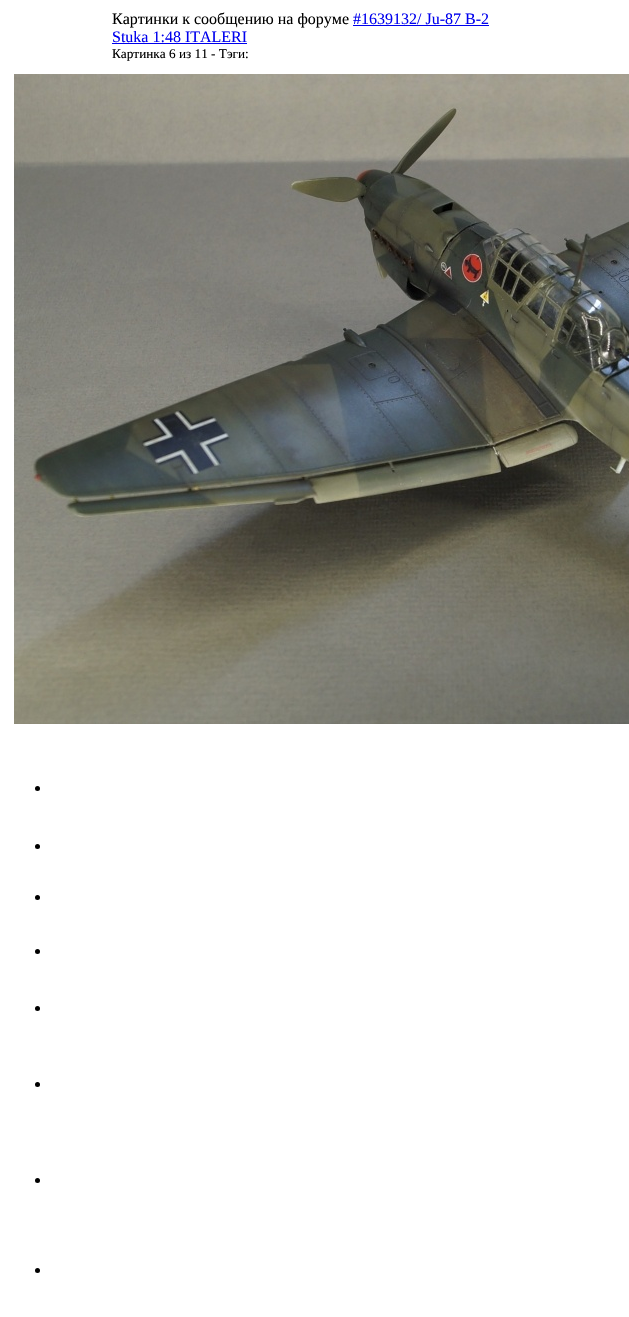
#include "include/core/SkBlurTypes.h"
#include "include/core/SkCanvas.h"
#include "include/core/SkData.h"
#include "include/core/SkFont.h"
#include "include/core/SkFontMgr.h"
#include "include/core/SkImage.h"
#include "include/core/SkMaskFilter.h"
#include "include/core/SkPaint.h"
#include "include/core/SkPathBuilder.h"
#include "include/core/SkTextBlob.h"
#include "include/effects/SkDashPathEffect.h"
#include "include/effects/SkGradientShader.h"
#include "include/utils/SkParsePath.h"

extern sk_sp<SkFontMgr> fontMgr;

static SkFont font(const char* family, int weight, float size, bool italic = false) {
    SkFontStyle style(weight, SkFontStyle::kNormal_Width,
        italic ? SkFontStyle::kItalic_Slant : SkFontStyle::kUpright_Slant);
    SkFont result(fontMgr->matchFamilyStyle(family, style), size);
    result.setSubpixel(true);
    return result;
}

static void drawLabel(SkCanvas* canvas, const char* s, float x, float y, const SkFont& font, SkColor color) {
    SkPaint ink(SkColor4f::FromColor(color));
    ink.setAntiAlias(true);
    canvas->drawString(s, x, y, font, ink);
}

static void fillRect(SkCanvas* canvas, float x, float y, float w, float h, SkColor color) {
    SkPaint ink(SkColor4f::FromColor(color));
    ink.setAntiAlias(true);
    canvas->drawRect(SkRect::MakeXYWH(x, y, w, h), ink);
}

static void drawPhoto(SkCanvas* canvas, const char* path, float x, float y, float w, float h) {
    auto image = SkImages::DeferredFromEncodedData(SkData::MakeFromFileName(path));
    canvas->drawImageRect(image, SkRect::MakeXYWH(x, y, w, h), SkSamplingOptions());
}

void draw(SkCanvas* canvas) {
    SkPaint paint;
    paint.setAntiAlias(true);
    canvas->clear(0xFFFFFFFF);
    SkFont font1 = font("Liberation Serif", 400, 16);
    drawLabel(canvas, "Картинки к сообщению на форуме", 112, 24, font1, 0xFF000000);
    drawLabel(canvas, "#1639132/ Ju-87 B-2", 353, 24, font1, 0xFF0000EE);
    fillRect(canvas, 353, 25, 136, 1, 0xFF0000EE);
    drawLabel(canvas, "Stuka 1:48 ITALERI", 112, 42, font1, 0xFF0000EE);
    fillRect(canvas, 112, 43, 135, 1, 0xFF0000EE);
    SkFont font2 = font("Liberation Serif", 400, 13.25f);
    drawLabel(canvas, "Картинка 6 из 11 - Тэги:", 112, 58, font2, 0xFF000000);
    drawPhoto(canvas, "assets/img1.png", 14, 74, 615, 650);
    paint.setColor(0xFF000000);
    canvas->drawCircle(37.5f, 788.5f, 2.5f, paint);
    canvas->drawCircle(37.5f, 846.5f, 2.5f, paint);
    canvas->drawCircle(37.5f, 897.5f, 2.5f, paint);
    canvas->drawCircle(37.5f, 951.5f, 2.5f, paint);
    canvas->drawCircle(37.5f, 1008.5f, 2.5f, paint);
    canvas->drawCircle(37.5f, 1084.5f, 2.5f, paint);
    canvas->drawCircle(37.5f, 1180.5f, 2.5f, paint);
    canvas->drawCircle(37.5f, 1270.5f, 2.5f, paint);
}
